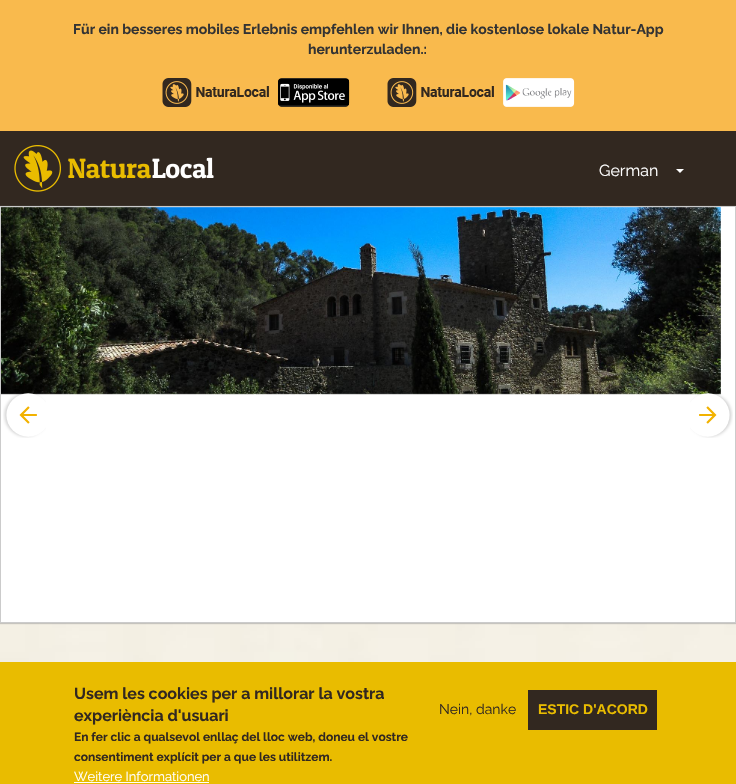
#include "include/core/SkBlurTypes.h"
#include "include/core/SkCanvas.h"
#include "include/core/SkData.h"
#include "include/core/SkFont.h"
#include "include/core/SkFontMgr.h"
#include "include/core/SkImage.h"
#include "include/core/SkMaskFilter.h"
#include "include/core/SkPaint.h"
#include "include/core/SkPathBuilder.h"
#include "include/core/SkTextBlob.h"
#include "include/effects/SkDashPathEffect.h"
#include "include/effects/SkGradientShader.h"
#include "include/utils/SkParsePath.h"

extern sk_sp<SkFontMgr> fontMgr;

static SkFont font(const char* family, int weight, float size, bool italic = false) {
    SkFontStyle style(weight, SkFontStyle::kNormal_Width,
        italic ? SkFontStyle::kItalic_Slant : SkFontStyle::kUpright_Slant);
    SkFont result(fontMgr->matchFamilyStyle(family, style), size);
    result.setSubpixel(true);
    return result;
}

static void drawLabel(SkCanvas* canvas, const char* s, float x, float y, const SkFont& font, SkColor color) {
    SkPaint ink(SkColor4f::FromColor(color));
    ink.setAntiAlias(true);
    canvas->drawString(s, x, y, font, ink);
}

static void fillRect(SkCanvas* canvas, float x, float y, float w, float h, SkColor color) {
    SkPaint ink(SkColor4f::FromColor(color));
    ink.setAntiAlias(true);
    canvas->drawRect(SkRect::MakeXYWH(x, y, w, h), ink);
}

static void drawPhoto(SkCanvas* canvas, const char* path, float x, float y, float w, float h) {
    auto image = SkImages::DeferredFromEncodedData(SkData::MakeFromFileName(path));
    canvas->drawImageRect(image, SkRect::MakeXYWH(x, y, w, h), SkSamplingOptions());
}

static SkPath parsePath(const char* data, bool evenOdd = false) {
    SkPath result = *SkParsePath::FromSVGString(data);
    if (evenOdd) result.setFillType(SkPathFillType::kEvenOdd);
    return result;
}

void draw(SkCanvas* canvas) {
    SkPaint paint;
    paint.setAntiAlias(true);
    canvas->clear(0xFFFFFFFF);
    fillRect(canvas, 0, 0, 736, 131, 0xFFF9BA4D);
    SkFont font1 = font("Raleway", 700, 14);
    drawLabel(canvas, "Für ein besseres mobiles Erlebnis empfehlen wir Ihnen, die kostenlose lokale Natur-App", 73, 34, font1, 0xFF333333);
    drawLabel(canvas, "herunterzuladen.:", 308, 54, font1, 0xFF333333);
    drawPhoto(canvas, "assets/img1.png", 162, 78, 188, 29);
    drawPhoto(canvas, "assets/img2.png", 387, 78, 188, 29);
    fillRect(canvas, 0, 131, 736, 75, 0xFF322820);
    drawPhoto(canvas, "assets/img3.png", 14, 145, 200, 47);
    SkFont font2 = font("Raleway", 400, 16);
    drawLabel(canvas, "German", 599, 176, font2, 0xFFFFFFFF);
    paint.setColor(0xFFFFFFFF);
    canvas->drawPath(parsePath("M676 169H684L680 173Z"), paint);
    drawPhoto(canvas, "assets/img7.png", 0, 623, 736, 39);
    canvas->save();
    canvas->clipPath(parsePath("M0 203H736V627H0ZM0 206H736V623H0Z", true), true);
    paint.setColor(0x80979797);
    paint.setMaskFilter(SkMaskFilter::MakeBlur(kNormal_SkBlurStyle, 0.5f));
    canvas->drawRect(SkRect::MakeXYWH(0, 206, 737, 418), paint);
    paint.setMaskFilter(nullptr);
    canvas->restore();
    paint.setStroke(true);
    paint.setStrokeWidth(1);
    paint.setColor(0xFFCBCBCB);
    canvas->drawRect(SkRect::MakeXYWH(0.5f, 206.5f, 735, 416), paint);
    drawPhoto(canvas, "assets/img4.png", 1, 207, 720, 188);
    drawPhoto(canvas, "assets/img5.png", 3, 393, 43, 45);
    drawPhoto(canvas, "assets/img6.png", 690, 392, 43, 46);
    fillRect(canvas, 0, 662, 736, 122, 0xFFE9BC00);
    SkFont font3 = font("Raleway", 700, 16);
    drawLabel(canvas, "Usem les cookies per a millorar la vostra", 74, 699, font3, 0xFF322820);
    drawLabel(canvas, "experiència d'usuari", 74, 721, font3, 0xFF322820);
    SkFont font4 = font("Raleway", 700, 12);
    drawLabel(canvas, "En fer clic a qualsevol enllaç del lloc web, doneu el vostre", 74, 741, font4, 0xFF322820);
    drawLabel(canvas, "consentiment explícit per a que les utilitzem.", 74, 761, font4, 0xFF322820);
    SkFont font5 = font("Raleway", 400, 13);
    drawLabel(canvas, "Weitere Informationen", 74, 781, font5, 0xFFFFFFFF);
    fillRect(canvas, 74, 782, 135, 1, 0xFFFFFFFF);
    SkFont font6 = font("Raleway", 400, 14);
    drawLabel(canvas, "Nein, danke", 439, 714, font6, 0xFF322820);
    fillRect(canvas, 528, 690, 129, 40, 0xFF322820);
    SkFont font7 = font("Liberation Sans", 700, 14);
    drawLabel(canvas, "ESTIC D'ACORD", 538, 714, font7, 0xFFE9BC00);
}
